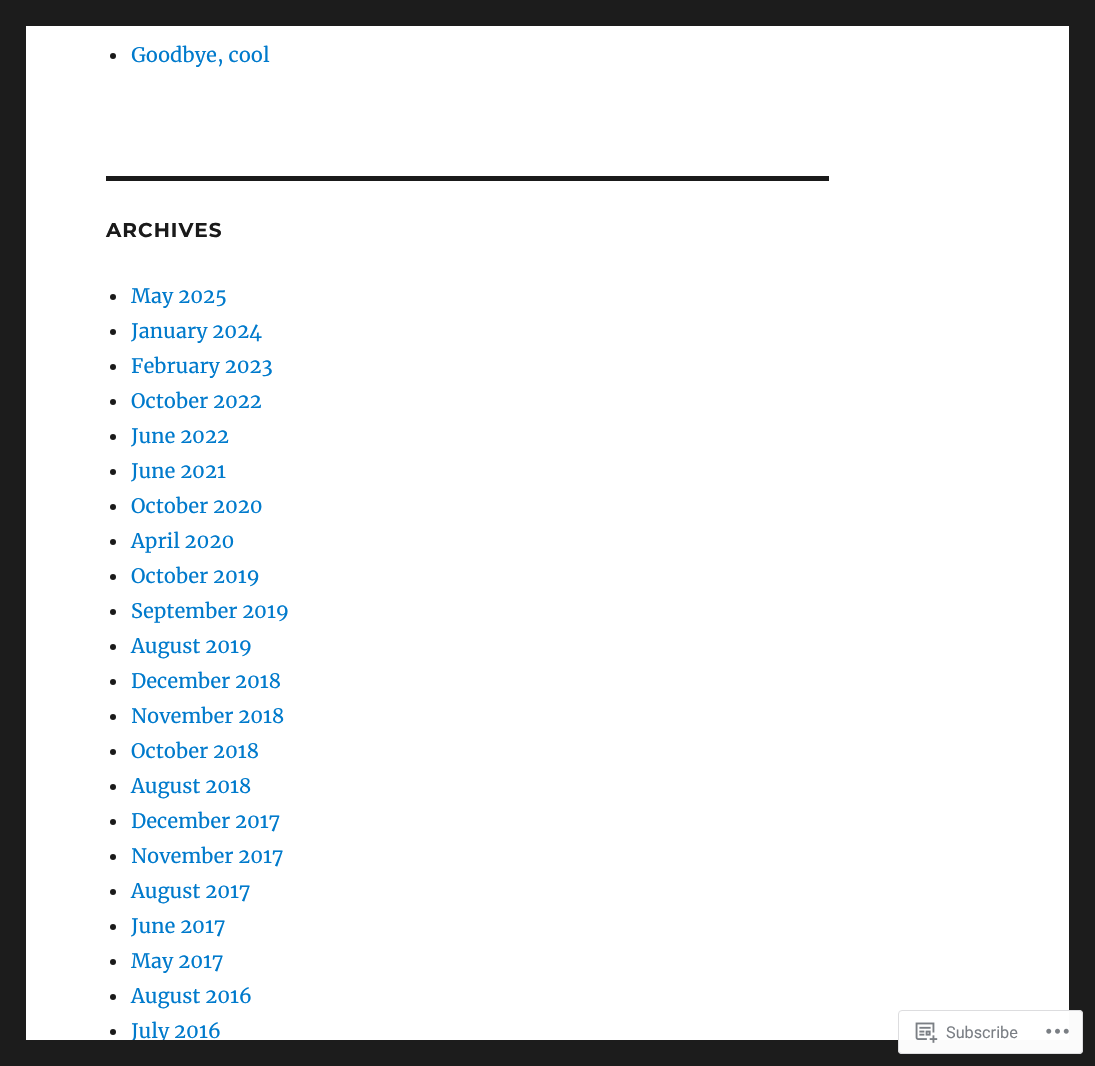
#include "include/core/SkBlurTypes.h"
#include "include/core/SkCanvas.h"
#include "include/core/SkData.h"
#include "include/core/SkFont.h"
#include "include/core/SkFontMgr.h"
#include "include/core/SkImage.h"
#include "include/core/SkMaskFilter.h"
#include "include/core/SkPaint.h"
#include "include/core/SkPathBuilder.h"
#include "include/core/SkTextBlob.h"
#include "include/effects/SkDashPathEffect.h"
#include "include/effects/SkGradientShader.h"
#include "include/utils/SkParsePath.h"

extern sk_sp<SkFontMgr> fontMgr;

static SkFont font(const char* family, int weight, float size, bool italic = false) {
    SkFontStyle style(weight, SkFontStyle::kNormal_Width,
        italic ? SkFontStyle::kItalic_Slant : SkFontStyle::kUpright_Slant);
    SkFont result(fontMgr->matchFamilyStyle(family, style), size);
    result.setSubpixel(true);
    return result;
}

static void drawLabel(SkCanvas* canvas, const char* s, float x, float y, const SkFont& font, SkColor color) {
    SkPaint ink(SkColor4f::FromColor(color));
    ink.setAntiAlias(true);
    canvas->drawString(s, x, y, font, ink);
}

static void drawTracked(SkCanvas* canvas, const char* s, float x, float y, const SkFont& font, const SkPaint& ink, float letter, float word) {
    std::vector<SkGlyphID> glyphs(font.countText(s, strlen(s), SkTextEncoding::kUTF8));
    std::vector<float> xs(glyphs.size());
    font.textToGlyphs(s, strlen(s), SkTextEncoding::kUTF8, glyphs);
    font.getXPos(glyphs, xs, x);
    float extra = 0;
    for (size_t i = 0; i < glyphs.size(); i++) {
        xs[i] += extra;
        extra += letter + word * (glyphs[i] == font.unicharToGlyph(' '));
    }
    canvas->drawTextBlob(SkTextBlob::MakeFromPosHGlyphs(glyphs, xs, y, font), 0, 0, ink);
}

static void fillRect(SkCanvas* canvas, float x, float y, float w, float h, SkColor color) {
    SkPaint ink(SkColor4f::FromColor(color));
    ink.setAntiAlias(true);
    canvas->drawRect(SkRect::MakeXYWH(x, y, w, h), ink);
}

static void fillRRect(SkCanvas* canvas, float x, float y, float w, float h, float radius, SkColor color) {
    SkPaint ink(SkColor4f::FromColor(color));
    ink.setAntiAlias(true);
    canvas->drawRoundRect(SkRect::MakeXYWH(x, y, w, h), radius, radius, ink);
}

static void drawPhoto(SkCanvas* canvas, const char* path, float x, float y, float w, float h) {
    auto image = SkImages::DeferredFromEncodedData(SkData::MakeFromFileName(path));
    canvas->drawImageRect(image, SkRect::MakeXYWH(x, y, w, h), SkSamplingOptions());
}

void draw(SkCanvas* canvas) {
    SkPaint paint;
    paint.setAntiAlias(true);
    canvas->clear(0xFF1C1C1C);
    fillRect(canvas, 26, 26, 1043, 1014, 0xFFFFFFFF);
    paint.setColor(0xFF1A1A1A);
    canvas->drawCircle(113, 56, 3, paint);
    SkFont font1 = font("Merriweather", 400, 20);
    drawLabel(canvas, "Goodbye, cool", 131, 62, font1, 0xFF007ACC);
    fillRect(canvas, 106, 176, 723, 5, 0xFF1A1A1A);
    SkFont font2 = font("Montserrat", 100, 20);
    drawTracked(canvas, "ARCHIVES", 106, 237, font2, paint, 1, 0);
    canvas->drawCircle(113, 297, 3, paint);
    drawLabel(canvas, "May 2025", 131, 303, font1, 0xFF007ACC);
    canvas->drawCircle(113, 332, 3, paint);
    drawLabel(canvas, "January 2024", 131, 338, font1, 0xFF007ACC);
    canvas->drawCircle(113, 367, 3, paint);
    drawLabel(canvas, "February 2023", 131, 373, font1, 0xFF007ACC);
    canvas->drawCircle(113, 402, 3, paint);
    drawLabel(canvas, "October 2022", 131, 408, font1, 0xFF007ACC);
    canvas->drawCircle(113, 437, 3, paint);
    drawLabel(canvas, "June 2022", 131, 443, font1, 0xFF007ACC);
    canvas->drawCircle(113, 472, 3, paint);
    drawLabel(canvas, "June 2021", 131, 478, font1, 0xFF007ACC);
    canvas->drawCircle(113, 507, 3, paint);
    drawLabel(canvas, "October 2020", 131, 513, font1, 0xFF007ACC);
    canvas->drawCircle(113, 542, 3, paint);
    drawLabel(canvas, "April 2020", 131, 548, font1, 0xFF007ACC);
    canvas->drawCircle(113, 577, 3, paint);
    drawLabel(canvas, "October 2019", 131, 583, font1, 0xFF007ACC);
    canvas->drawCircle(113, 612, 3, paint);
    drawLabel(canvas, "September 2019", 131, 618, font1, 0xFF007ACC);
    canvas->drawCircle(113, 647, 3, paint);
    drawLabel(canvas, "August 2019", 131, 653, font1, 0xFF007ACC);
    canvas->drawCircle(113, 682, 3, paint);
    drawLabel(canvas, "December 2018", 131, 688, font1, 0xFF007ACC);
    canvas->drawCircle(113, 717, 3, paint);
    drawLabel(canvas, "November 2018", 131, 723, font1, 0xFF007ACC);
    canvas->drawCircle(113, 752, 3, paint);
    drawLabel(canvas, "October 2018", 131, 758, font1, 0xFF007ACC);
    canvas->drawCircle(113, 787, 3, paint);
    drawLabel(canvas, "August 2018", 131, 793, font1, 0xFF007ACC);
    canvas->drawCircle(113, 822, 3, paint);
    drawLabel(canvas, "December 2017", 131, 828, font1, 0xFF007ACC);
    canvas->drawCircle(113, 857, 3, paint);
    drawLabel(canvas, "November 2017", 131, 863, font1, 0xFF007ACC);
    canvas->drawCircle(113, 892, 3, paint);
    drawLabel(canvas, "August 2017", 131, 898, font1, 0xFF007ACC);
    canvas->drawCircle(113, 927, 3, paint);
    drawLabel(canvas, "June 2017", 131, 933, font1, 0xFF007ACC);
    canvas->drawCircle(113, 962, 3, paint);
    drawLabel(canvas, "May 2017", 131, 968, font1, 0xFF007ACC);
    canvas->drawCircle(113, 997, 3, paint);
    drawLabel(canvas, "August 2016", 131, 1003, font1, 0xFF007ACC);
    canvas->drawCircle(113, 1032, 3, paint);
    drawLabel(canvas, "July 2016", 131, 1038, font1, 0xFF007ACC);
    fillRRect(canvas, 898, 1010, 185, 44, 4, 0xFAFFFFFF);
    paint.setStroke(true);
    paint.setStrokeWidth(1);
    paint.setColor(0xFADCDCDE);
    canvas->drawRoundRect(SkRect::MakeXYWH(898.5f, 1010.5f, 184, 43), 3.5f, 3.5f, paint);
    drawPhoto(canvas, "assets/img1.png", 915, 1022, 23, 21);
    SkFont font3 = font("Roboto", 400, 16.25f);
    drawLabel(canvas, "Subscribe", 946, 1038, font3, 0xFF7B7F85);
    drawPhoto(canvas, "assets/img2.png", 1046, 1028, 23, 6);
    fillRect(canvas, 131, 1040, 34, 3, 0xFF1C1C1C);
}
